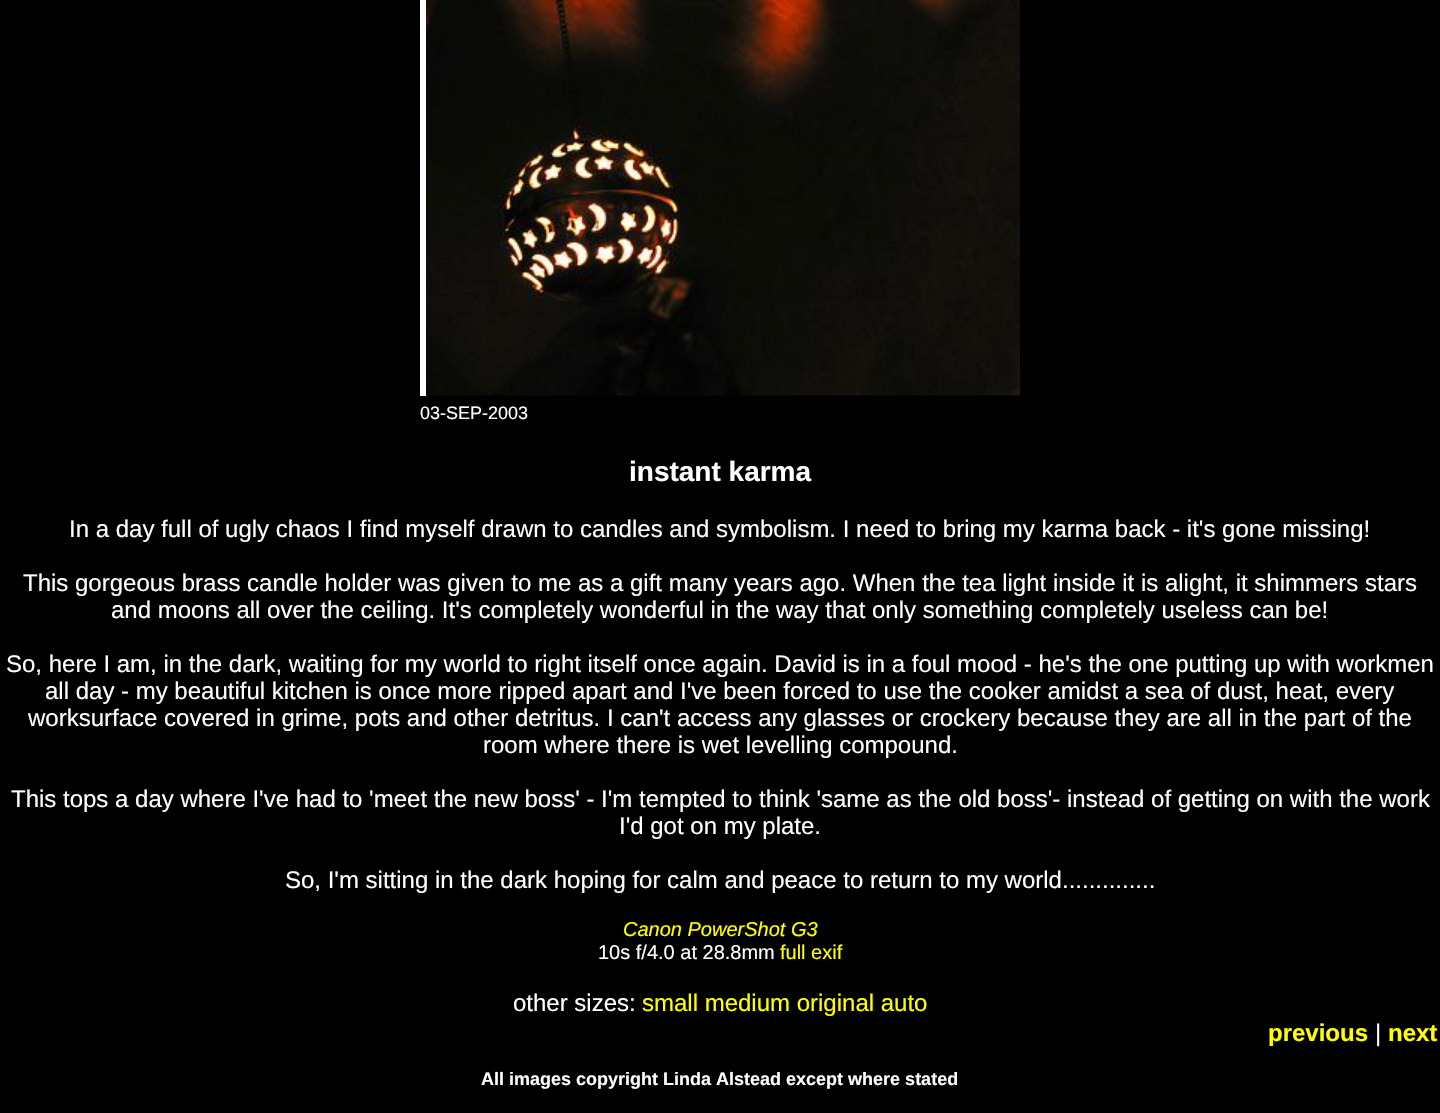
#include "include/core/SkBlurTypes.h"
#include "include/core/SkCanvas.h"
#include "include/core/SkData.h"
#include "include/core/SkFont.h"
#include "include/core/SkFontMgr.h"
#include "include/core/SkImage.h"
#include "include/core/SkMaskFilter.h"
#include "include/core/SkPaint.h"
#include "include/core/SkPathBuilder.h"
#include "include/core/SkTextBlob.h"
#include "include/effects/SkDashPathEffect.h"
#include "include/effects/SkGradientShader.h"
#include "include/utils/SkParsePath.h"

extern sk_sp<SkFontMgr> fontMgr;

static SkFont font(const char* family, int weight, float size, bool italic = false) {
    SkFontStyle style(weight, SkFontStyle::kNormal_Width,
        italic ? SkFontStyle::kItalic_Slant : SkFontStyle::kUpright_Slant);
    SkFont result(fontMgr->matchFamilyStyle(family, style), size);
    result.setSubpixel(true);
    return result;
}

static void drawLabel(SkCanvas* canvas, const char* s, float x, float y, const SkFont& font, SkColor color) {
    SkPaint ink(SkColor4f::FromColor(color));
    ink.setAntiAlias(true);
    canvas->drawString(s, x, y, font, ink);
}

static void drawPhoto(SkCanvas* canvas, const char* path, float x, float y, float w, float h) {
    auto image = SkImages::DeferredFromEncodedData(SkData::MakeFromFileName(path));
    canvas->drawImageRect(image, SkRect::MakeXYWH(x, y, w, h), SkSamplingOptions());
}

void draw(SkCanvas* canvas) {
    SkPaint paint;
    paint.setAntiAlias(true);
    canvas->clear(0xFF000000);
    canvas->save();
    canvas->clipRect(SkRect::MakeXYWH(420, 0, 600, 396));
    paint.setStroke(true);
    paint.setStrokeWidth(6);
    paint.setColor(0xFFFFFFFF);
    canvas->drawRect(SkRect::MakeXYWH(423, -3, 606, 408), paint);
    canvas->restore();
    drawPhoto(canvas, "assets/img1.png", 426, 0, 594, 396);
    SkFont font1 = font("Liberation Sans", 400, 18);
    drawLabel(canvas, "03-SEP-2003", 420, 419, font1, 0xFFFFFFFF);
    SkFont font2 = font("Liberation Sans", 700, 28);
    drawLabel(canvas, "instant karma", 629, 481, font2, 0xFFFFFFFF);
    SkFont font3 = font("Liberation Sans", 400, 24);
    drawLabel(canvas, "In a day full of ugly chaos I find myself drawn to candles and symbolism. I need to bring my karma back - it's gone missing!", 69, 537, font3, 0xFFFFFFFF);
    drawLabel(canvas, "This gorgeous brass candle holder was given to me as a gift many years ago. When the tea light inside it is alight, it shimmers stars", 23, 591, font3, 0xFFFFFFFF);
    drawLabel(canvas, "and moons all over the ceiling. It's completely wonderful in the way that only something completely useless can be!", 111, 618, font3, 0xFFFFFFFF);
    drawLabel(canvas, "So, here I am, in the dark, waiting for my world to right itself once again. David is in a foul mood - he's the one putting up with workmen", 6, 672, font3, 0xFFFFFFFF);
    drawLabel(canvas, "all day - my beautiful kitchen is once more ripped apart and I've been forced to use the cooker amidst a sea of dust, heat, every", 45, 699, font3, 0xFFFFFFFF);
    drawLabel(canvas, "worksurface covered in grime, pots and other detritus. I can't access any glasses or crockery because they are all in the part of the", 28, 726, font3, 0xFFFFFFFF);
    drawLabel(canvas, "room where there is wet levelling compound.", 483, 753, font3, 0xFFFFFFFF);
    drawLabel(canvas, "This tops a day where I've had to 'meet the new boss' - I'm tempted to think 'same as the old boss'- instead of getting on with the work", 11, 807, font3, 0xFFFFFFFF);
    drawLabel(canvas, "I'd got on my plate.", 619, 834, font3, 0xFFFFFFFF);
    drawLabel(canvas, "So, I'm sitting in the dark hoping for calm and peace to return to my world..............", 285, 888, font3, 0xFFFFFFFF);
    SkFont font4 = font("Liberation Sans", 400, 20, true);
    drawLabel(canvas, "Canon PowerShot G3", 623, 936, font4, 0xFFFFFF00);
    SkFont font5 = font("Liberation Sans", 400, 20);
    drawLabel(canvas, "10s f/4.0 at 28.8mm", 598, 959, font5, 0xFFFFFFFF);
    drawLabel(canvas, "full exif", 780, 959, font5, 0xFFFFFF00);
    drawLabel(canvas, "other sizes:", 513, 1011, font3, 0xFFFFFFFF);
    drawLabel(canvas, "small medium original auto", 642, 1011, font3, 0xFFFFFF00);
    SkFont font6 = font("Liberation Sans", 700, 24);
    drawLabel(canvas, "previous", 1268, 1041, font6, 0xFFFFFF00);
    drawLabel(canvas, "|", 1375, 1041, font3, 0xFFFFFFFF);
    drawLabel(canvas, "next", 1388, 1041, font6, 0xFFFFFF00);
    SkFont font7 = font("Liberation Sans", 700, 18);
    drawLabel(canvas, "All images copyright Linda Alstead except where stated", 481, 1085, font7, 0xFFFFFFFF);
}
